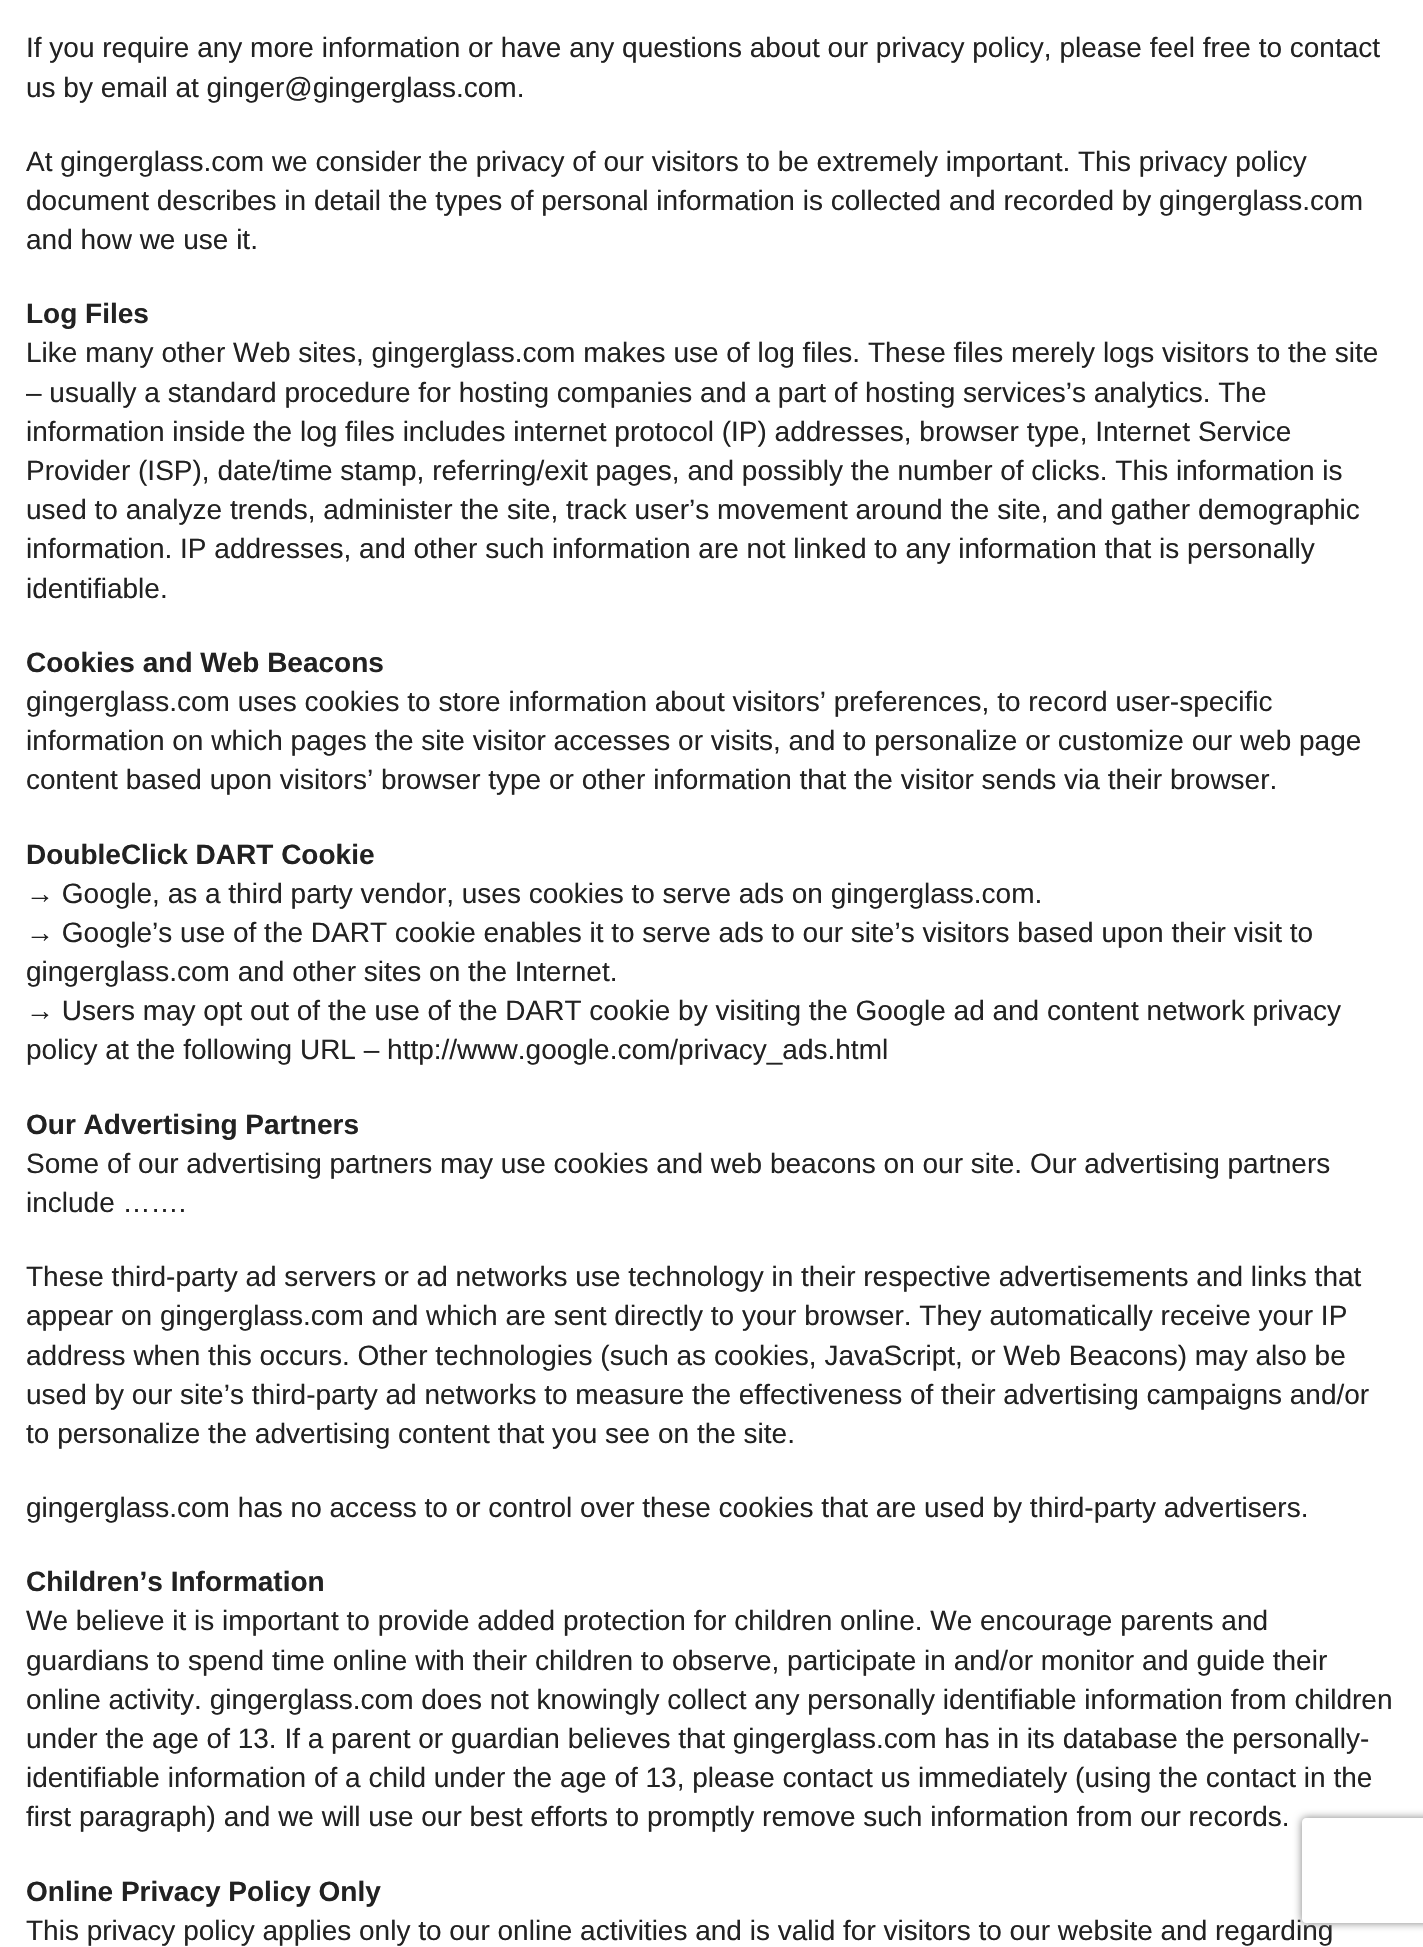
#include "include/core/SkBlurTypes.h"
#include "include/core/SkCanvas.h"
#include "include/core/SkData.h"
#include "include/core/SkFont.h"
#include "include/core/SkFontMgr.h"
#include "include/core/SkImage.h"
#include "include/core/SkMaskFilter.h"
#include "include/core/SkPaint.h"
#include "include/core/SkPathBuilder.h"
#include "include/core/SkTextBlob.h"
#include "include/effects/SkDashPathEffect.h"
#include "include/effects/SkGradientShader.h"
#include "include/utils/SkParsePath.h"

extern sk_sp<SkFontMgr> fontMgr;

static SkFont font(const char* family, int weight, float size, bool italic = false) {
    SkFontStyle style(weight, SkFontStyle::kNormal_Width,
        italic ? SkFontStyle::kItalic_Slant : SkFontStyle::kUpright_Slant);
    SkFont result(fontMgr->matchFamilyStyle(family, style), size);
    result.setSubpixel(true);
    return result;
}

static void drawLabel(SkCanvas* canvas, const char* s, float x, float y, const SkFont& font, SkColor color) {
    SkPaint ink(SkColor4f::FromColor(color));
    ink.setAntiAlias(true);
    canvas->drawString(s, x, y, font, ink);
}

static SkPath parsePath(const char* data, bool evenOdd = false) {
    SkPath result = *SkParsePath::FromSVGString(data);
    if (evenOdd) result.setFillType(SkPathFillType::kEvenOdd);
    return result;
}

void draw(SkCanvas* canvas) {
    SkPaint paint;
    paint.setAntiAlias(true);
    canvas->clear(0xFFFFFFFF);
    SkFont font1 = font("Liberation Sans", 400, 28);
    drawLabel(canvas, "If you require any more information or have any questions about our privacy policy, please feel free to contact", 26, 57, font1, 0xFF222222);
    drawLabel(canvas, "us by email at ginger@gingerglass.com.", 26, 97, font1, 0xFF222222);
    drawLabel(canvas, "At gingerglass.com we consider the privacy of our visitors to be extremely important. This privacy policy", 26, 171, font1, 0xFF222222);
    drawLabel(canvas, "document describes in detail the types of personal information is collected and recorded by gingerglass.com", 26, 210, font1, 0xFF222222);
    drawLabel(canvas, "and how we use it.", 26, 249, font1, 0xFF222222);
    SkFont font2 = font("Liberation Sans", 700, 28);
    drawLabel(canvas, "Log Files", 26, 323, font2, 0xFF222222);
    drawLabel(canvas, "Like many other Web sites, gingerglass.com makes use of log files. These files merely logs visitors to the site", 26, 362, font1, 0xFF222222);
    drawLabel(canvas, "– usually a standard procedure for hosting companies and a part of hosting services’s analytics. The", 26, 402, font1, 0xFF222222);
    drawLabel(canvas, "information inside the log files includes internet protocol (IP) addresses, browser type, Internet Service", 26, 441, font1, 0xFF222222);
    drawLabel(canvas, "Provider (ISP), date/time stamp, referring/exit pages, and possibly the number of clicks. This information is", 26, 480, font1, 0xFF222222);
    drawLabel(canvas, "used to analyze trends, administer the site, track user’s movement around the site, and gather demographic", 26, 519, font1, 0xFF222222);
    drawLabel(canvas, "information. IP addresses, and other such information are not linked to any information that is personally", 26, 558, font1, 0xFF222222);
    drawLabel(canvas, "identifiable.", 26, 598, font1, 0xFF222222);
    drawLabel(canvas, "Cookies and Web Beacons", 26, 672, font2, 0xFF222222);
    drawLabel(canvas, "gingerglass.com uses cookies to store information about visitors’ preferences, to record user-specific", 26, 711, font1, 0xFF222222);
    drawLabel(canvas, "information on which pages the site visitor accesses or visits, and to personalize or customize our web page", 26, 750, font1, 0xFF222222);
    drawLabel(canvas, "content based upon visitors’ browser type or other information that the visitor sends via their browser.", 26, 789, font1, 0xFF222222);
    drawLabel(canvas, "DoubleClick DART Cookie", 26, 864, font2, 0xFF222222);
    drawLabel(canvas, "→ Google, as a third party vendor, uses cookies to serve ads on gingerglass.com.", 26, 903, font1, 0xFF222222);
    drawLabel(canvas, "→ Google’s use of the DART cookie enables it to serve ads to our site’s visitors based upon their visit to", 26, 942, font1, 0xFF222222);
    drawLabel(canvas, "gingerglass.com and other sites on the Internet.", 26, 981, font1, 0xFF222222);
    drawLabel(canvas, "→ Users may opt out of the use of the DART cookie by visiting the Google ad and content network privacy", 26, 1020, font1, 0xFF222222);
    drawLabel(canvas, "policy at the following URL – http://www.google.com/privacy_ads.html", 26, 1059, font1, 0xFF222222);
    drawLabel(canvas, "Our Advertising Partners", 26, 1134, font2, 0xFF222222);
    drawLabel(canvas, "Some of our advertising partners may use cookies and web beacons on our site. Our advertising partners", 26, 1173, font1, 0xFF222222);
    drawLabel(canvas, "include …….", 26, 1212, font1, 0xFF222222);
    drawLabel(canvas, "These third-party ad servers or ad networks use technology in their respective advertisements and links that", 26, 1286, font1, 0xFF222222);
    drawLabel(canvas, "appear on gingerglass.com and which are sent directly to your browser. They automatically receive your IP", 26, 1325, font1, 0xFF222222);
    drawLabel(canvas, "address when this occurs. Other technologies (such as cookies, JavaScript, or Web Beacons) may also be", 26, 1365, font1, 0xFF222222);
    drawLabel(canvas, "used by our site’s third-party ad networks to measure the effectiveness of their advertising campaigns and/or", 26, 1404, font1, 0xFF222222);
    drawLabel(canvas, "to personalize the advertising content that you see on the site.", 26, 1443, font1, 0xFF222222);
    drawLabel(canvas, "gingerglass.com has no access to or control over these cookies that are used by third-party advertisers.", 26, 1517, font1, 0xFF222222);
    drawLabel(canvas, "Children’s Information", 26, 1591, font2, 0xFF222222);
    drawLabel(canvas, "We believe it is important to provide added protection for children online. We encourage parents and", 26, 1630, font1, 0xFF222222);
    drawLabel(canvas, "guardians to spend time online with their children to observe, participate in and/or monitor and guide their", 26, 1670, font1, 0xFF222222);
    drawLabel(canvas, "online activity. gingerglass.com does not knowingly collect any personally identifiable information from children", 26, 1709, font1, 0xFF222222);
    drawLabel(canvas, "under the age of 13. If a parent or guardian believes that gingerglass.com has in its database the personally-", 26, 1748, font1, 0xFF222222);
    drawLabel(canvas, "identifiable information of a child under the age of 13, please contact us immediately (using the contact in the", 26, 1787, font1, 0xFF222222);
    drawLabel(canvas, "first paragraph) and we will use our best efforts to promptly remove such information from our records.", 26, 1826, font1, 0xFF222222);
    drawLabel(canvas, "Online Privacy Policy Only", 26, 1901, font2, 0xFF222222);
    drawLabel(canvas, "This privacy policy applies only to our online activities and is valid for visitors to our website and regarding", 26, 1940, font1, 0xFF222222);
    canvas->save();
    canvas->clipPath(parsePath("M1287 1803H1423V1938H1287ZM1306 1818H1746C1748 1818 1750 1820 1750 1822V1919C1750 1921 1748 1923 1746 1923H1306C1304 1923 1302 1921 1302 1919V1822C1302 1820 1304 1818 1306 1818Z", true), true);
    paint.setColor(0xFF808080);
    paint.setMaskFilter(SkMaskFilter::MakeBlur(kNormal_SkBlurStyle, 4.5f));
    canvas->drawRoundRect(SkRect::MakeXYWH(1302, 1818, 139, 105), 4, 4, paint);
    paint.setMaskFilter(nullptr);
    canvas->restore();
}
